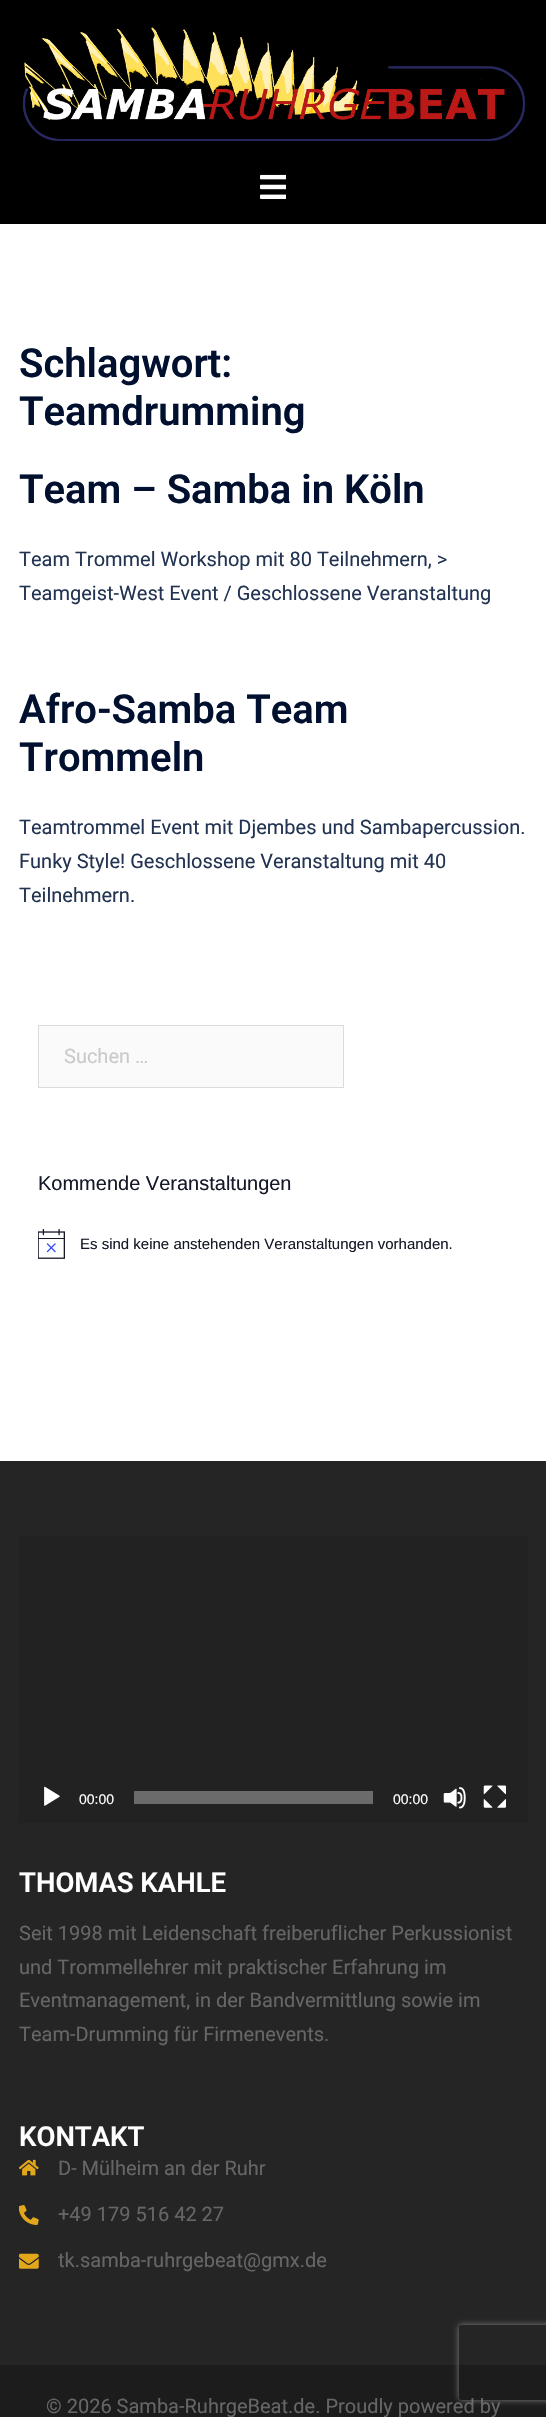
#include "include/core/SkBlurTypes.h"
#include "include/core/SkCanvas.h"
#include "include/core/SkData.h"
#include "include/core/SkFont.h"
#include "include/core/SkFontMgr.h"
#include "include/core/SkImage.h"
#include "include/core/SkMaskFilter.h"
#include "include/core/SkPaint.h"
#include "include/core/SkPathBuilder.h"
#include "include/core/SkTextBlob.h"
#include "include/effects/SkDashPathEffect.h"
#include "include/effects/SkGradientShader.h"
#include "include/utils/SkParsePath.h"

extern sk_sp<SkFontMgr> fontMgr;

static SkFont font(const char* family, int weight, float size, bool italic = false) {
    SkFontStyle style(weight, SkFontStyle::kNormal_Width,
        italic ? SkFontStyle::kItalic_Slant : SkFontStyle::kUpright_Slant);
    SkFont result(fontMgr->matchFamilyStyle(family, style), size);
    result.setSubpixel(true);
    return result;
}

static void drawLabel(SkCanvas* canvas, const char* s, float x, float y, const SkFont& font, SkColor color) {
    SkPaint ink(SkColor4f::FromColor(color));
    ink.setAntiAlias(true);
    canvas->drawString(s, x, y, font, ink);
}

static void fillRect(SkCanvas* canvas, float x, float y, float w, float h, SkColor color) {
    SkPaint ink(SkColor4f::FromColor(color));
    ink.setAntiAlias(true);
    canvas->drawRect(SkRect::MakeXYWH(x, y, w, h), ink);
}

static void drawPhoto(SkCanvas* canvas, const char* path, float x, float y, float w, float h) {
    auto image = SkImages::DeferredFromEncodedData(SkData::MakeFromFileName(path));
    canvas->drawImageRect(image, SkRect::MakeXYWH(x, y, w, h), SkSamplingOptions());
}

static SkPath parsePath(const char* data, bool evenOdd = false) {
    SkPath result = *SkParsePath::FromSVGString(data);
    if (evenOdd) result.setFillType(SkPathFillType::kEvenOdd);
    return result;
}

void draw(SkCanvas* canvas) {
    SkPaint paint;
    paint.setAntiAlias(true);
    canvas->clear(0xFFFFFFFF);
    fillRect(canvas, 0, 0, 546, 224, 0xFF000000);
    drawPhoto(canvas, "assets/img1.png", 22, 27, 503, 114);
    drawPhoto(canvas, "assets/img2.png", 260, 174, 26, 25);
    SkFont font1 = font("Roboto", 600, 40);
    drawLabel(canvas, "Schlagwort:", 19, 377, font1, 0xFF00102E);
    drawLabel(canvas, "Teamdrumming", 19, 425, font1, 0xFF00102E);
    drawLabel(canvas, "Team – Samba in Köln", 19, 503, font1, 0xFF00102E);
    SkFont font2 = font("Roboto", 400, 20);
    drawLabel(canvas, "Team Trommel Workshop mit 80 Teilnehmern, >", 19, 566, font2, 0xFF233452);
    drawLabel(canvas, "Teamgeist-West Event / Geschlossene Veranstaltung", 19, 600, font2, 0xFF233452);
    drawLabel(canvas, "Afro-Samba Team", 19, 723, font1, 0xFF00102E);
    drawLabel(canvas, "Trommeln", 19, 771, font1, 0xFF00102E);
    drawLabel(canvas, "Teamtrommel Event mit Djembes und Sambapercussion.", 19, 834, font2, 0xFF233452);
    drawLabel(canvas, "Funky Style! Geschlossene Veranstaltung mit 40", 19, 868, font2, 0xFF233452);
    drawLabel(canvas, "Teilnehmern.", 19, 902, font2, 0xFF233452);
    paint.setColor(0xFFFAFAFA);
    canvas->drawRect(SkRect::MakeXYWH(38.5f, 1025.5f, 305, 62), paint);
    paint.setStroke(true);
    paint.setStrokeWidth(1);
    paint.setColor(0xFFDBDBDB);
    canvas->drawRect(SkRect::MakeXYWH(38.5f, 1025.5f, 305, 62), paint);
    drawLabel(canvas, "Suchen …", 64, 1063, font2, 0xFFCACACA);
    SkFont font3 = font("Liberation Sans", 400, 20);
    drawLabel(canvas, "Kommende Veranstaltungen", 38, 1190, font3, 0xFF141827);
    drawPhoto(canvas, "assets/img3.png", 38, 1229, 27, 30);
    SkFont font4 = font("Liberation Sans", 400, 15);
    drawLabel(canvas, "Es sind keine anstehenden Veranstaltungen vorhanden.", 80, 1249, font4, 0xFF141827);
    fillRect(canvas, 0, 1461, 546, 904, 0xFF252525);
    fillRect(canvas, 19, 1536, 509, 287, 0xFF222222);
    drawPhoto(canvas, "assets/img4.png", 44, 1786, 16, 20);
    SkFont font5 = font("Liberation Sans", 400, 14);
    drawLabel(canvas, "00:00", 79, 1804, font5, 0xFFFFFFFF);
    fillRect(canvas, 134, 1791, 239, 13, 0xFF6B6B6B);
    drawLabel(canvas, "00:00", 393, 1804, font5, 0xFFFFFFFF);
    drawPhoto(canvas, "assets/img5.png", 443, 1787, 23, 22);
    drawPhoto(canvas, "assets/img6.png", 483, 1785, 23, 23);
    SkFont font6 = font("Roboto", 600, 27.5f);
    drawLabel(canvas, "THOMAS KAHLE", 19, 1892, font6, 0xFFFFFFFF);
    drawLabel(canvas, "Seit 1998 mit Leidenschaft freiberuflicher Perkussionist", 19, 1940, font2, 0xFF666666);
    drawLabel(canvas, "und Trommellehrer mit praktischer Erfahrung im", 19, 1974, font2, 0xFF666666);
    drawLabel(canvas, "Eventmanagement, in der Bandvermittlung sowie im", 19, 2007, font2, 0xFF666666);
    drawLabel(canvas, "Team-Drumming für Firmenevents.", 19, 2041, font2, 0xFF666666);
    drawLabel(canvas, "KONTAKT", 19, 2146, font6, 0xFFFFFFFF);
    drawPhoto(canvas, "assets/img7.png", 19, 2159, 20, 17);
    drawLabel(canvas, "D- Mülheim an der Ruhr", 58, 2175, font2, 0xFF666666);
    drawPhoto(canvas, "assets/img8.png", 19, 2205, 20, 20);
    drawLabel(canvas, "+49 179 516 42 27", 58, 2221, font2, 0xFF666666);
    drawPhoto(canvas, "assets/img9.png", 19, 2253, 20, 16);
    drawLabel(canvas, "tk.samba-ruhrgebeat@gmx.de", 58, 2267, font2, 0xFF666666);
    fillRect(canvas, 0, 2365, 546, 52, 0xFF1C1C1C);
    drawLabel(canvas, "© 2026 Samba-RuhrgeBeat.de. Proudly powered by", 46, 2413, font2, 0xFF666666);
    canvas->save();
    canvas->clipPath(parsePath("M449 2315H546V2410H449ZM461.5 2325H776.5C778 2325 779 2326 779 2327.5V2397.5C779 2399 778 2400 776.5 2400H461.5C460 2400 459 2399 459 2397.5V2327.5C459 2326 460 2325 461.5 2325Z", true), true);
    paint.setStroke(false);
    paint.setColor(0xFF808080);
    paint.setMaskFilter(SkMaskFilter::MakeBlur(kNormal_SkBlurStyle, 3));
    canvas->drawRoundRect(SkRect::MakeXYWH(459, 2325, 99, 75), 2.5f, 2.5f, paint);
    paint.setMaskFilter(nullptr);
    canvas->restore();
}
